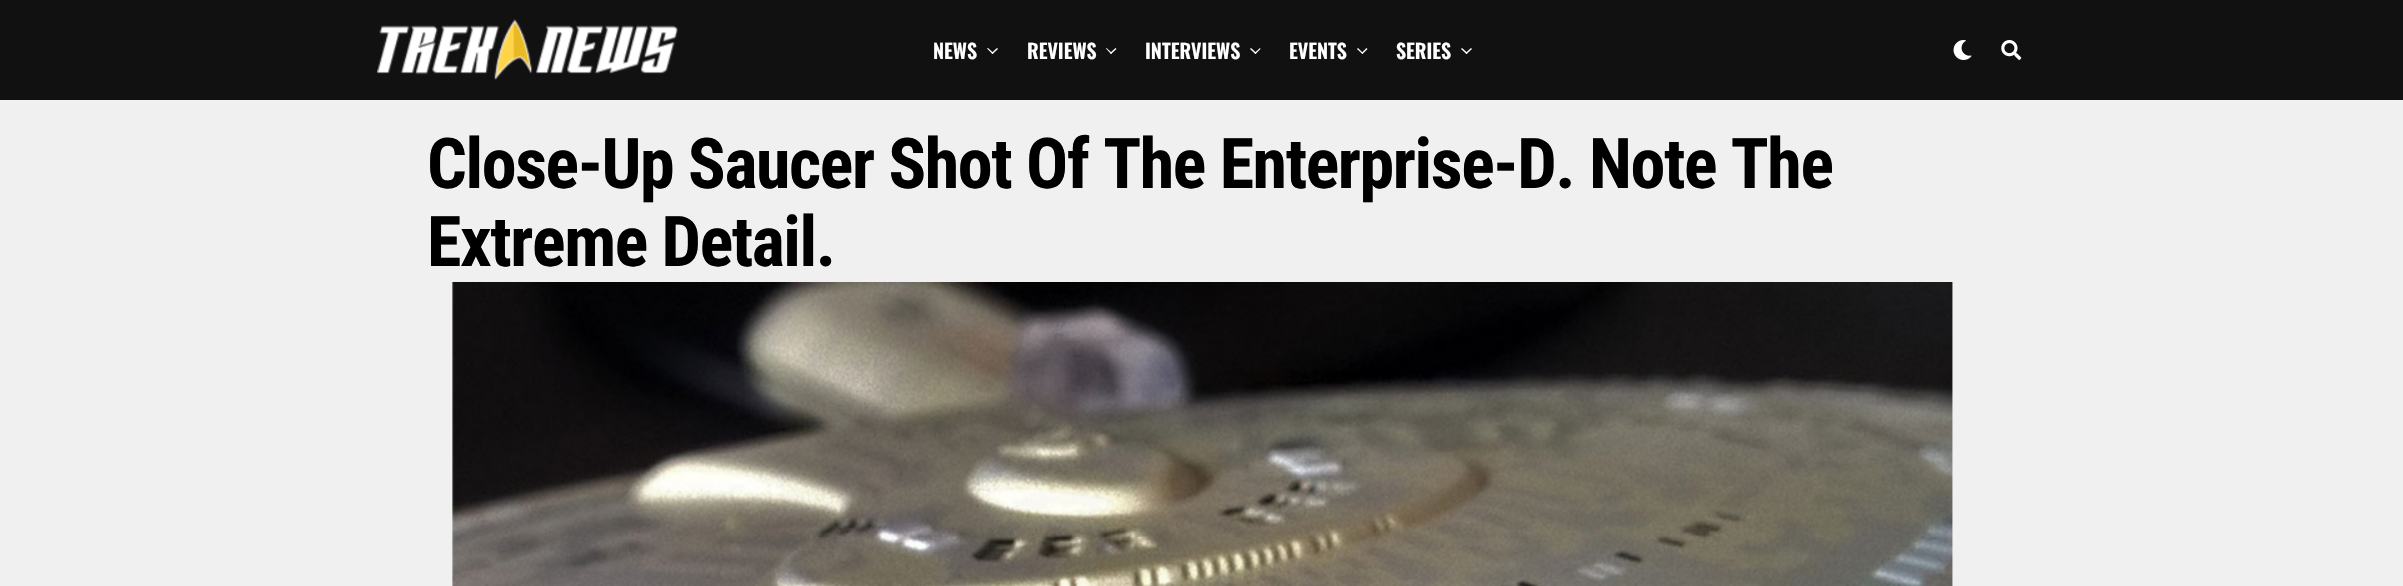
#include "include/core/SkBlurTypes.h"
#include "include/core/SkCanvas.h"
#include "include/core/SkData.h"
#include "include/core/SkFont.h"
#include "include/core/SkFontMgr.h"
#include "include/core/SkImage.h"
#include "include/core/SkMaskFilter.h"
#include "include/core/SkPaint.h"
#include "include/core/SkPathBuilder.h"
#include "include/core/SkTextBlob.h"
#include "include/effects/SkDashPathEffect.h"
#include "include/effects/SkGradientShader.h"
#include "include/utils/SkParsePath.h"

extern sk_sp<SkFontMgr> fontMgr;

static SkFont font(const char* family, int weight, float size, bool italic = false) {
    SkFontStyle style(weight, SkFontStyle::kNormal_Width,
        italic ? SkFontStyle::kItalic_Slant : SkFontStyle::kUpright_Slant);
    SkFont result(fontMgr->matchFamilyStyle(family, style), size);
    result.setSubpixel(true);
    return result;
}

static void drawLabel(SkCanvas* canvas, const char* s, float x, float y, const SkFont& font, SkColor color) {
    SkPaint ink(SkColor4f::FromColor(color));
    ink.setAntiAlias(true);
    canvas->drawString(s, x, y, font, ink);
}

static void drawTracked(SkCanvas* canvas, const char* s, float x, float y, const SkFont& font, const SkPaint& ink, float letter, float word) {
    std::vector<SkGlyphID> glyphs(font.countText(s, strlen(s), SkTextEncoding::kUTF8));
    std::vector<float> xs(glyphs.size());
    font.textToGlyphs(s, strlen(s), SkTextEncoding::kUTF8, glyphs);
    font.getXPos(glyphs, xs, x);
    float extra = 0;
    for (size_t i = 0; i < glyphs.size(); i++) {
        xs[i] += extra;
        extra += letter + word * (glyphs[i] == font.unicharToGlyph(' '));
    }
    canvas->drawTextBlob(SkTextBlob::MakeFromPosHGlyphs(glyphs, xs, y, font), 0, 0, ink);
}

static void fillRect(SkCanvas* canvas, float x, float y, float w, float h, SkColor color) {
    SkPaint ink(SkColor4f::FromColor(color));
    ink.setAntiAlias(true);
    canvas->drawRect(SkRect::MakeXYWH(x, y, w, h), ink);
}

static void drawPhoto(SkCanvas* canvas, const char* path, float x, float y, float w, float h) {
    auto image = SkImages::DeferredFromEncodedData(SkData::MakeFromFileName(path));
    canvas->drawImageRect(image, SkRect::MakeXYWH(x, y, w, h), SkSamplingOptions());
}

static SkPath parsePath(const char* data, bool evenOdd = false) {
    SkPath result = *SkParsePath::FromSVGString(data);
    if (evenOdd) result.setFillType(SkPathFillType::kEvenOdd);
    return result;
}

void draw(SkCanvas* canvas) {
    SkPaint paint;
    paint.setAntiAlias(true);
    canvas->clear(0xFFF0F0F0);
    fillRect(canvas, 0, 0, 2403, 100, 0xFF111111);
    drawPhoto(canvas, "assets/img1.png", 377, 19, 301, 61);
    SkFont font1 = font("Oswald", 600, 20);
    drawLabel(canvas, "NEWS", 933, 59, font1, 0xFFFFFFFF);
    paint.setColor(0xFFFFFFFF);
    canvas->drawPath(parsePath("M997 48L998 49L992.5 54L991.5 53Z"), paint);
    canvas->drawPath(parsePath("M988 48L993.5 53L992.5 54L987 48.5Z"), paint);
    drawLabel(canvas, "REVIEWS", 1027, 59, font1, 0xFFFFFFFF);
    canvas->drawPath(parsePath("M1115.5 48L1116.5 49L1111 54L1110 53Z"), paint);
    canvas->drawPath(parsePath("M1106.5 48L1112 53L1111 54L1106 48.5Z"), paint);
    drawLabel(canvas, "INTERVIEWS", 1145, 59, font1, 0xFFFFFFFF);
    canvas->drawPath(parsePath("M1260 48L1260.5 49L1255.5 54L1254.5 53Z"), paint);
    canvas->drawPath(parsePath("M1251 48L1256.5 53L1255.5 54L1250 49Z"), paint);
    drawLabel(canvas, "EVENTS", 1289, 59, font1, 0xFFFFFFFF);
    canvas->drawPath(parsePath("M1366.5 48L1367.5 49L1362.5 54L1361.5 53Z"), paint);
    canvas->drawPath(parsePath("M1358 48L1363 53L1362.5 54L1357 49Z"), paint);
    drawLabel(canvas, "SERIES", 1396, 59, font1, 0xFFFFFFFF);
    canvas->drawPath(parsePath("M1471 48L1472 49L1466.5 54L1465.5 53Z"), paint);
    canvas->drawPath(parsePath("M1462 48L1467.5 53L1466.5 54L1461 49Z"), paint);
    drawPhoto(canvas, "assets/img2.png", 1953, 40, 19, 20);
    drawPhoto(canvas, "assets/img3.png", 2001, 40, 21, 20);
    SkFont font2 = font("Roboto Condensed", 700, 70);
    paint.setColor(0xFF000000);
    drawTracked(canvas, "Close-Up Saucer Shot Of The Enterprise-D. Note The", 427, 188, font2, paint, -1.4f, 0);
    drawTracked(canvas, "Extreme Detail.", 427, 266, font2, paint, -1.4f, 0);
    drawPhoto(canvas, "assets/img4.png", 452, 282, 1501, 304);
}
